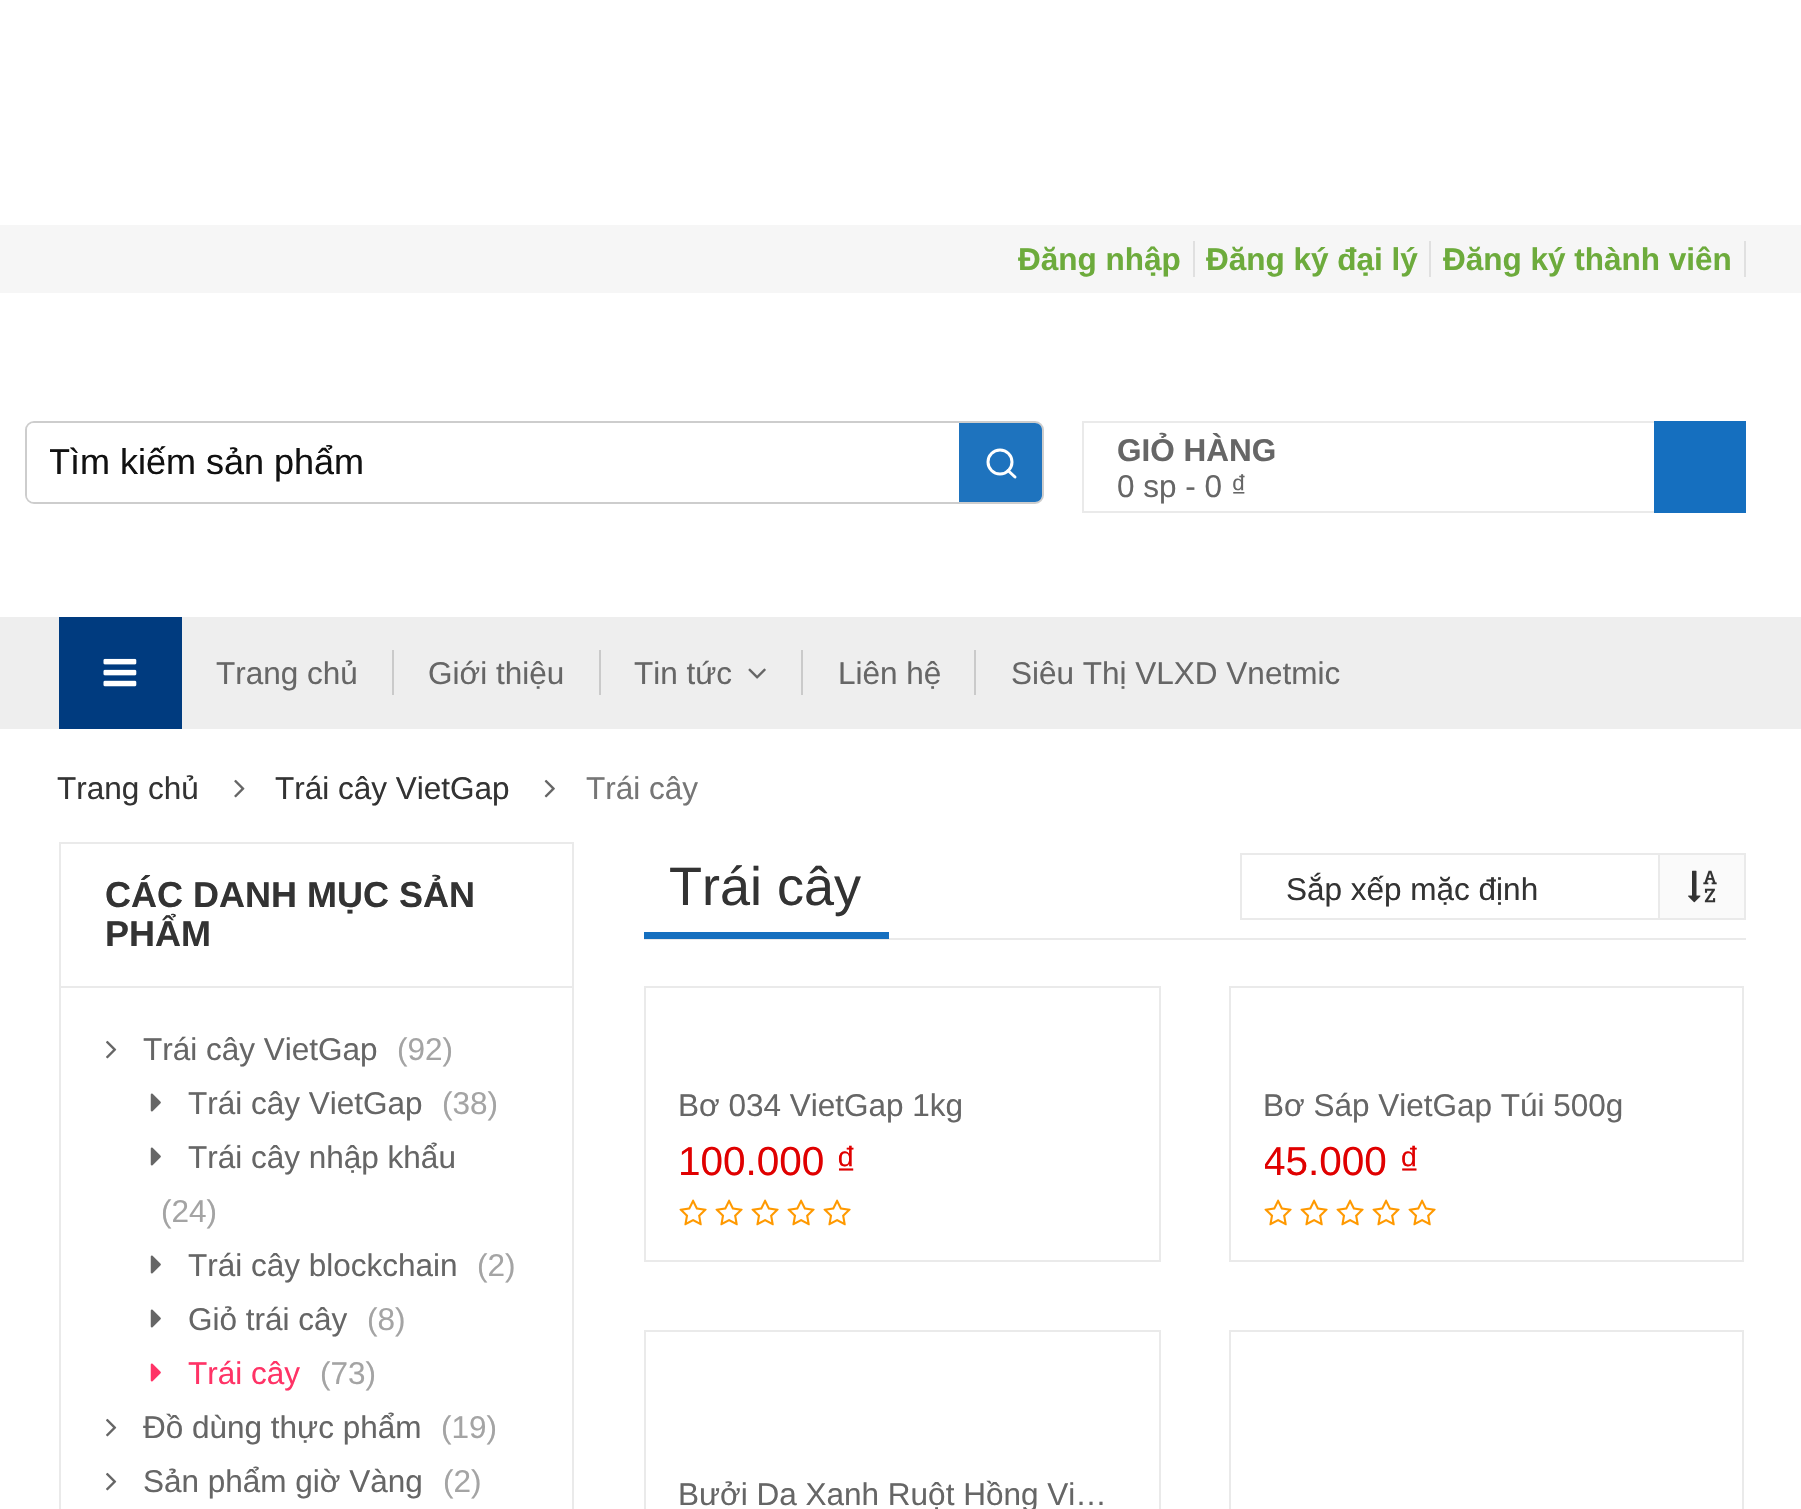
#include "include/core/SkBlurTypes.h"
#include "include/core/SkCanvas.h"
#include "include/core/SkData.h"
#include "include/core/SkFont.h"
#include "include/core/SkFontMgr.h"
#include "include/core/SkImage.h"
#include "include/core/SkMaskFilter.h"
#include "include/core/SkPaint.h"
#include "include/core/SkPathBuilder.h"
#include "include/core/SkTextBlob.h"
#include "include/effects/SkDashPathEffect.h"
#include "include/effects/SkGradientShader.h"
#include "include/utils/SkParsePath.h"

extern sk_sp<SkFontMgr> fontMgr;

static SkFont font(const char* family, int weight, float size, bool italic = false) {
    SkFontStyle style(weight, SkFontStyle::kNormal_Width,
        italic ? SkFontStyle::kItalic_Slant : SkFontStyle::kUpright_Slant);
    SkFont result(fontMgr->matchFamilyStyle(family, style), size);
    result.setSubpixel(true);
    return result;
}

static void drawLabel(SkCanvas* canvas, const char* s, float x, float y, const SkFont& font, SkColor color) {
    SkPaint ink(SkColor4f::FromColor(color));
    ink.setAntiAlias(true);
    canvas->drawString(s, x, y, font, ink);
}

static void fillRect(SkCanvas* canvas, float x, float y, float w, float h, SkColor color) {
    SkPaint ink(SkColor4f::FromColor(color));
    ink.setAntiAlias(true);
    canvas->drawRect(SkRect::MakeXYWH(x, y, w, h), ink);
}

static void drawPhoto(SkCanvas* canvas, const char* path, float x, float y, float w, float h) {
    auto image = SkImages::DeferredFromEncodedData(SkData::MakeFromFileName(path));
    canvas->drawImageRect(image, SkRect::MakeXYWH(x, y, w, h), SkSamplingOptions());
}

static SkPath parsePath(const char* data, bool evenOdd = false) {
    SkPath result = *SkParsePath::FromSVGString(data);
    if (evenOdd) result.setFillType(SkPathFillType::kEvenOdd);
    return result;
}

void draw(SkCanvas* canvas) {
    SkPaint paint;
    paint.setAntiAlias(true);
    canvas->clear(0xFFFFFFFF);
    fillRect(canvas, 0, 225, 1801, 68, 0xFFF6F6F6);
    SkFont font1 = font("Liberation Sans", 700, 31.5f);
    drawLabel(canvas, "Đăng nhập", 1018, 270, font1, 0xFF6DAB3C);
    fillRect(canvas, 1193, 241, 2, 36, 0xFFE0E0E0);
    drawLabel(canvas, "Đăng ký đại lý", 1206, 270, font1, 0xFF6DAB3C);
    fillRect(canvas, 1429, 241, 2, 36, 0xFFE0E0E0);
    drawLabel(canvas, "Đăng ký thành viên", 1443, 270, font1, 0xFF6DAB3C);
    fillRect(canvas, 1744, 241, 2, 36, 0xFFE0E0E0);
    paint.setStroke(true);
    paint.setStrokeWidth(2);
    paint.setColor(0xFFCDCDCD);
    canvas->drawRoundRect(SkRect::MakeXYWH(26, 422, 1017, 81), 8, 8, paint);
    paint.setStroke(false);
    paint.setColor(0xFFFFFFFF);
    canvas->drawPath(parsePath("M34 423H959V502H34C30 502 27 499 27 495V430C27 426 30 423 34 423Z"), paint);
    canvas->save();
    canvas->clipRect(SkRect::MakeXYWH(50, 443, 886, 41));
    SkFont font2 = font("Liberation Sans", 400, 36);
    drawLabel(canvas, "Tìm kiếm sản phẩm", 48, 474, font2, 0xFF111111);
    canvas->restore();
    paint.setColor(0xFF1E73BE);
    canvas->drawPath(parsePath("M959 423H1035C1039 423 1042 426 1042 430V495C1042 499 1039 502 1035 502H959Z"), paint);
    paint.setStroke(true);
    paint.setStrokeWidth(3);
    paint.setColor(0xFFFFFFFF);
    canvas->drawCircle(1000, 462, 12, paint);
    paint.setStrokeCap(SkPaint::kRound_Cap);
    paint.setStrokeJoin(SkPaint::kRound_Join);
    canvas->drawPath(parsePath("M1015 477L1008 470.5"), paint);
    paint.setStrokeWidth(2);
    paint.setStrokeCap(SkPaint::kButt_Cap);
    paint.setStrokeJoin(SkPaint::kMiter_Join);
    paint.setColor(0xFFEAEAEA);
    canvas->drawRect(SkRect::MakeXYWH(1083, 422, 662, 90), paint);
    drawLabel(canvas, "GIỎ HÀNG", 1117, 461, font1, 0xFF666666);
    fillRect(canvas, 1654, 421, 92, 92, 0xFF156FBF);
    SkFont font3 = font("Liberation Sans", 400, 31.5f);
    drawLabel(canvas, "0 sp - 0 ₫", 1117, 497, font3, 0xFF666666);
    fillRect(canvas, 0, 617, 1801, 112, 0xFFEEEEEE);
    fillRect(canvas, 59, 617, 123, 112, 0xFF003B7F);
    drawPhoto(canvas, "assets/img1.png", 103, 658, 34, 29);
    fillRect(canvas, 392, 650, 2, 45, 0xFFCACACA);
    drawLabel(canvas, "Trang chủ", 216, 684, font3, 0xFF666666);
    fillRect(canvas, 599, 650, 2, 45, 0xFFCACACA);
    drawLabel(canvas, "Giới thiệu", 428, 684, font3, 0xFF666666);
    fillRect(canvas, 801, 650, 2, 45, 0xFFCACACA);
    drawLabel(canvas, "Tin tức", 634, 684, font3, 0xFF666666);
    drawPhoto(canvas, "assets/img2.png", 748, 668, 18, 11);
    fillRect(canvas, 974, 650, 2, 45, 0xFFCACACA);
    drawLabel(canvas, "Liên hệ", 838, 684, font3, 0xFF666666);
    drawLabel(canvas, "Siêu Thị VLXD Vnetmic", 1011, 684, font3, 0xFF666666);
    drawLabel(canvas, "Trang chủ", 57, 799, font3, 0xFF333333);
    drawPhoto(canvas, "assets/img3.png", 234, 779, 11, 19);
    drawLabel(canvas, "Trái cây VietGap", 275, 799, font3, 0xFF333333);
    drawPhoto(canvas, "assets/img4.png", 544, 779, 11, 19);
    drawLabel(canvas, "Trái cây", 586, 799, font3, 0xFF767676);
    canvas->drawRect(SkRect::MakeXYWH(60, 843, 513, 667), paint);
    fillRect(canvas, 61, 986, 511, 2, 0xFFEAEAEA);
    SkFont font4 = font("Liberation Sans", 700, 36);
    drawLabel(canvas, "CÁC DANH MỤC SẢN", 105, 907, font4, 0xFF333333);
    drawLabel(canvas, "PHẨM", 105, 946, font4, 0xFF333333);
    drawPhoto(canvas, "assets/img5.png", 106, 1040, 11, 19);
    drawLabel(canvas, "Trái cây VietGap", 143, 1060, font3, 0xFF666666);
    drawLabel(canvas, "(92)", 397, 1060, font3, 0xFFA4A4A4);
    drawPhoto(canvas, "assets/img6.png", 150, 1093, 11, 19);
    drawLabel(canvas, "Trái cây VietGap", 188, 1114, font3, 0xFF666666);
    drawLabel(canvas, "(38)", 442, 1114, font3, 0xFFA4A4A4);
    drawPhoto(canvas, "assets/img6.png", 150, 1147, 11, 19);
    drawLabel(canvas, "Trái cây nhập khẩu", 188, 1168, font3, 0xFF666666);
    drawLabel(canvas, "(24)", 161, 1222, font3, 0xFFA4A4A4);
    drawPhoto(canvas, "assets/img6.png", 150, 1255, 11, 19);
    drawLabel(canvas, "Trái cây blockchain", 188, 1276, font3, 0xFF666666);
    drawLabel(canvas, "(2)", 477, 1276, font3, 0xFFA4A4A4);
    drawPhoto(canvas, "assets/img6.png", 150, 1309, 11, 19);
    drawLabel(canvas, "Giỏ trái cây", 188, 1330, font3, 0xFF666666);
    drawLabel(canvas, "(8)", 367, 1330, font3, 0xFFA4A4A4);
    drawPhoto(canvas, "assets/img7.png", 150, 1363, 11, 19);
    drawLabel(canvas, "Trái cây", 188, 1384, font3, 0xFFFF3366);
    drawLabel(canvas, "(73)", 320, 1384, font3, 0xFFA4A4A4);
    drawPhoto(canvas, "assets/img5.png", 106, 1418, 11, 19);
    drawLabel(canvas, "Đồ dùng thực phẩm", 143, 1438, font3, 0xFF666666);
    drawLabel(canvas, "(19)", 441, 1438, font3, 0xFFA4A4A4);
    drawPhoto(canvas, "assets/img5.png", 106, 1472, 11, 19);
    drawLabel(canvas, "Sản phẩm giờ Vàng", 143, 1492, font3, 0xFF666666);
    drawLabel(canvas, "(2)", 443, 1492, font3, 0xFFA4A4A4);
    fillRect(canvas, 644, 938, 1102, 2, 0xFFEAEAEA);
    fillRect(canvas, 644, 932, 245, 7, 0xFF156FBF);
    SkFont font5 = font("Liberation Sans", 400, 54);
    drawLabel(canvas, "Trái cây", 669, 905, font5, 0xFF333333);
    canvas->drawRect(SkRect::MakeXYWH(1241, 854, 504, 65), paint);
    drawLabel(canvas, "Sắp xếp mặc định", 1286, 900, font3, 0xFF333333);
    fillRect(canvas, 1660, 855, 84, 63, 0xFFFAFAFA);
    fillRect(canvas, 1658, 855, 2, 63, 0xFFEAEAEA);
    drawPhoto(canvas, "assets/img8.png", 1688, 870, 29, 33);
    canvas->drawRect(SkRect::MakeXYWH(645, 987, 515, 274), paint);
    drawLabel(canvas, "Bơ 034 VietGap 1kg", 678, 1116, font3, 0xFF666666);
    SkFont font6 = font("Liberation Sans", 400, 40.5f);
    drawLabel(canvas, "100.000 ₫", 678, 1175, font6, 0xFFE00000);
    drawPhoto(canvas, "assets/img9.png", 679, 1199, 28, 27);
    drawPhoto(canvas, "assets/img9.png", 715, 1199, 28, 27);
    drawPhoto(canvas, "assets/img9.png", 751, 1199, 28, 27);
    drawPhoto(canvas, "assets/img9.png", 787, 1199, 28, 27);
    drawPhoto(canvas, "assets/img9.png", 823, 1199, 28, 27);
    canvas->drawRect(SkRect::MakeXYWH(1230, 987, 513, 274), paint);
    drawLabel(canvas, "Bơ Sáp VietGap Túi 500g", 1263, 1116, font3, 0xFF666666);
    canvas->save();
    canvas->clipRect(SkRect::MakeXYWH(1265, 1134, 155, 54));
    drawLabel(canvas, "45.000", 1263, 1175, font6, 0xFFE00000);
    canvas->restore();
    drawLabel(canvas, "₫", 1399, 1175, font6, 0xFFE00000);
    drawPhoto(canvas, "assets/img9.png", 1264, 1199, 28, 27);
    drawPhoto(canvas, "assets/img9.png", 1300, 1199, 28, 27);
    drawPhoto(canvas, "assets/img9.png", 1336, 1199, 28, 27);
    drawPhoto(canvas, "assets/img9.png", 1372, 1199, 28, 27);
    drawPhoto(canvas, "assets/img9.png", 1408, 1199, 28, 27);
    canvas->drawRect(SkRect::MakeXYWH(645, 1331, 515, 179), paint);
    drawLabel(canvas, "Bưởi Da Xanh Ruột Hồng Vi…", 678, 1505, font3, 0xFF666666);
    canvas->drawRect(SkRect::MakeXYWH(1230, 1331, 513, 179), paint);
}
